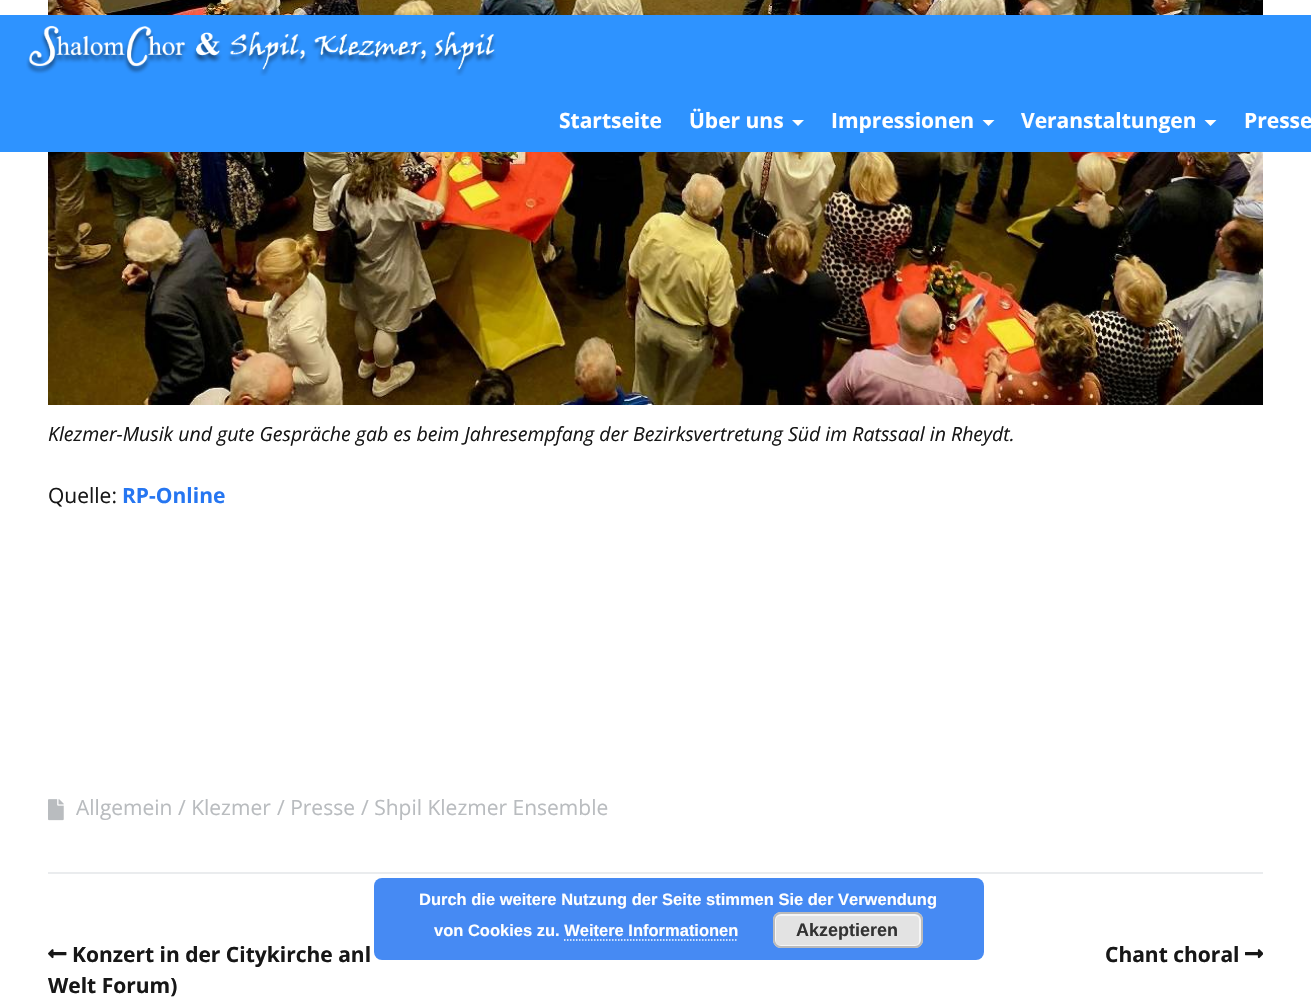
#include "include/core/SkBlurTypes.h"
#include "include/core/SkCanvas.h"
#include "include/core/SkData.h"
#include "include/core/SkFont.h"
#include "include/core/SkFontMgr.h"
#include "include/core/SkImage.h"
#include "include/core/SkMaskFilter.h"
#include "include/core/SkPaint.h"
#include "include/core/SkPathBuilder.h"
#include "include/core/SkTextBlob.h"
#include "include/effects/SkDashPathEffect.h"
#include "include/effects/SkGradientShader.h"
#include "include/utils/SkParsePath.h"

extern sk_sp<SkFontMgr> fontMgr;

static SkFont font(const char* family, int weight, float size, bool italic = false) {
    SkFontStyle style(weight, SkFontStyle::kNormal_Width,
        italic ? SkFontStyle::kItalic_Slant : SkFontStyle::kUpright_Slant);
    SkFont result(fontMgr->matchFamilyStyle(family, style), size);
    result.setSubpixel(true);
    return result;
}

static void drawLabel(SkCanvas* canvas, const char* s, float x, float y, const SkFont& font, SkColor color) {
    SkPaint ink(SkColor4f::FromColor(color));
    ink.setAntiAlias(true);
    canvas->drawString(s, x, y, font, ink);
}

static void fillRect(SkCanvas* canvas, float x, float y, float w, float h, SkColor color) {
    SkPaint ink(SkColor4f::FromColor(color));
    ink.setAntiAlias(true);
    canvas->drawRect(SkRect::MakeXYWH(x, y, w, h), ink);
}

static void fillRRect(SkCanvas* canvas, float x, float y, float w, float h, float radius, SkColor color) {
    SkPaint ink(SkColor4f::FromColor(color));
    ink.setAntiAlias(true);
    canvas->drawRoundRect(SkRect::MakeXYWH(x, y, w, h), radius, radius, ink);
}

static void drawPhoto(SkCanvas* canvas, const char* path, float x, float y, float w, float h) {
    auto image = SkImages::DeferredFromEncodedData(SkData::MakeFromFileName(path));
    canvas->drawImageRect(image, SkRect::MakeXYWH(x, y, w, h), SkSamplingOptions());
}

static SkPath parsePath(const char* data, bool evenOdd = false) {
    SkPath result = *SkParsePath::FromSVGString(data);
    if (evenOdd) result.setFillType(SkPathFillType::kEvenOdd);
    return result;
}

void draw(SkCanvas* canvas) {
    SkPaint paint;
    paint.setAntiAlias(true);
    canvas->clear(0xFFFFFFFF);
    drawPhoto(canvas, "assets/img2.png", 48, 0, 1215, 405);
    fillRect(canvas, 0, 15, 1311, 137, 0xFF2E93FF);
    drawPhoto(canvas, "assets/img1.png", 26, 25, 470, 51);
    SkFont font1 = font("Open Sans", 700, 21);
    drawLabel(canvas, "Startseite", 559, 128, font1, 0xFFFFFFFF);
    drawLabel(canvas, "Über uns", 689, 128, font1, 0xFFFFFFFF);
    paint.setColor(0xFFFFFFFF);
    canvas->drawPath(parsePath("M792 120H804L798 126Z"), paint);
    drawLabel(canvas, "Impressionen", 831, 128, font1, 0xFFFFFFFF);
    canvas->drawPath(parsePath("M982.5 120H994.5L988.5 126Z"), paint);
    drawLabel(canvas, "Veranstaltungen", 1021, 128, font1, 0xFFFFFFFF);
    canvas->drawPath(parsePath("M1204.5 120H1216.5L1210.5 126Z"), paint);
    drawLabel(canvas, "Presse", 1244, 128, font1, 0xFFFFFFFF);
    fillRect(canvas, 48, 872, 1215, 2, 0xFFEAECEE);
    SkFont font2 = font("Open Sans", 400, 19.5f, true);
    drawLabel(canvas, "Klezmer-Musik und gute Gespräche gab es beim Jahresempfang der Bezirksvertretung Süd im Ratssaal in Rheydt.", 48, 441, font2, 0xFF171717);
    SkFont font3 = font("Open Sans", 400, 21);
    drawLabel(canvas, "Quelle:", 48, 503, font3, 0xFF171717);
    drawLabel(canvas, "RP-Online", 122, 503, font1, 0xFF2676F1);
    drawPhoto(canvas, "assets/img3.png", 48, 799, 16, 22);
    drawLabel(canvas, "Allgemein", 76, 815, font3, 0xFFB9BCBF);
    drawLabel(canvas, "/ Klezmer", 178, 815, font3, 0xFFB9BCBF);
    drawLabel(canvas, "/ Presse", 277, 815, font3, 0xFFB9BCBF);
    drawLabel(canvas, "/ Shpil Klezmer Ensemble", 361, 815, font3, 0xFFB9BCBF);
    drawPhoto(canvas, "assets/img4.png", 48, 949, 19, 10);
    drawLabel(canvas, "Konzert in der Citykirche anl", 72, 962, font1, 0xFF171717);
    drawLabel(canvas, "Welt Forum)", 48, 993, font1, 0xFF171717);
    drawLabel(canvas, "Chant choral", 1105, 962, font1, 0xFF171717);
    drawPhoto(canvas, "assets/img5.png", 1245, 949, 18, 10);
    fillRRect(canvas, 374, 878, 610, 82, 8, 0xD92676F1);
    SkFont font4 = font("Liberation Sans", 700, 16.5f);
    drawLabel(canvas, "Durch die weitere Nutzung der Seite stimmen Sie der Verwendung", 419, 905, font4, 0xFFFFFFFF);
    drawLabel(canvas, "von Cookies zu. Weitere Informationen", 434, 936, font4, 0xFFFFFFFF);
    fillRRect(canvas, 773, 912, 150, 36, 8, 0xFFE3E3E3);
    paint.setStroke(true);
    paint.setStrokeWidth(2);
    paint.setColor(0xFFF6F6F6);
    canvas->drawRoundRect(SkRect::MakeXYWH(775, 915, 145, 31), 5, 5, paint);
    paint.setColor(0xFFBBBBBB);
    canvas->drawRoundRect(SkRect::MakeXYWH(774, 913, 148, 34), 7, 7, paint);
    SkFont font5 = font("Liberation Sans", 700, 18);
    drawLabel(canvas, "Akzeptieren", 796, 936, font5, 0xFF333333);
    paint.setStrokeWidth(1.5f);
    paint.setColor(0xFFFFFFFF);
    paint.setPathEffect(SkDashPathEffect::Make({{1.5f, 1.5f}}, 0));
    canvas->drawPath(parsePath("M564 940H738"), paint);
    paint.setPathEffect(nullptr);
}
